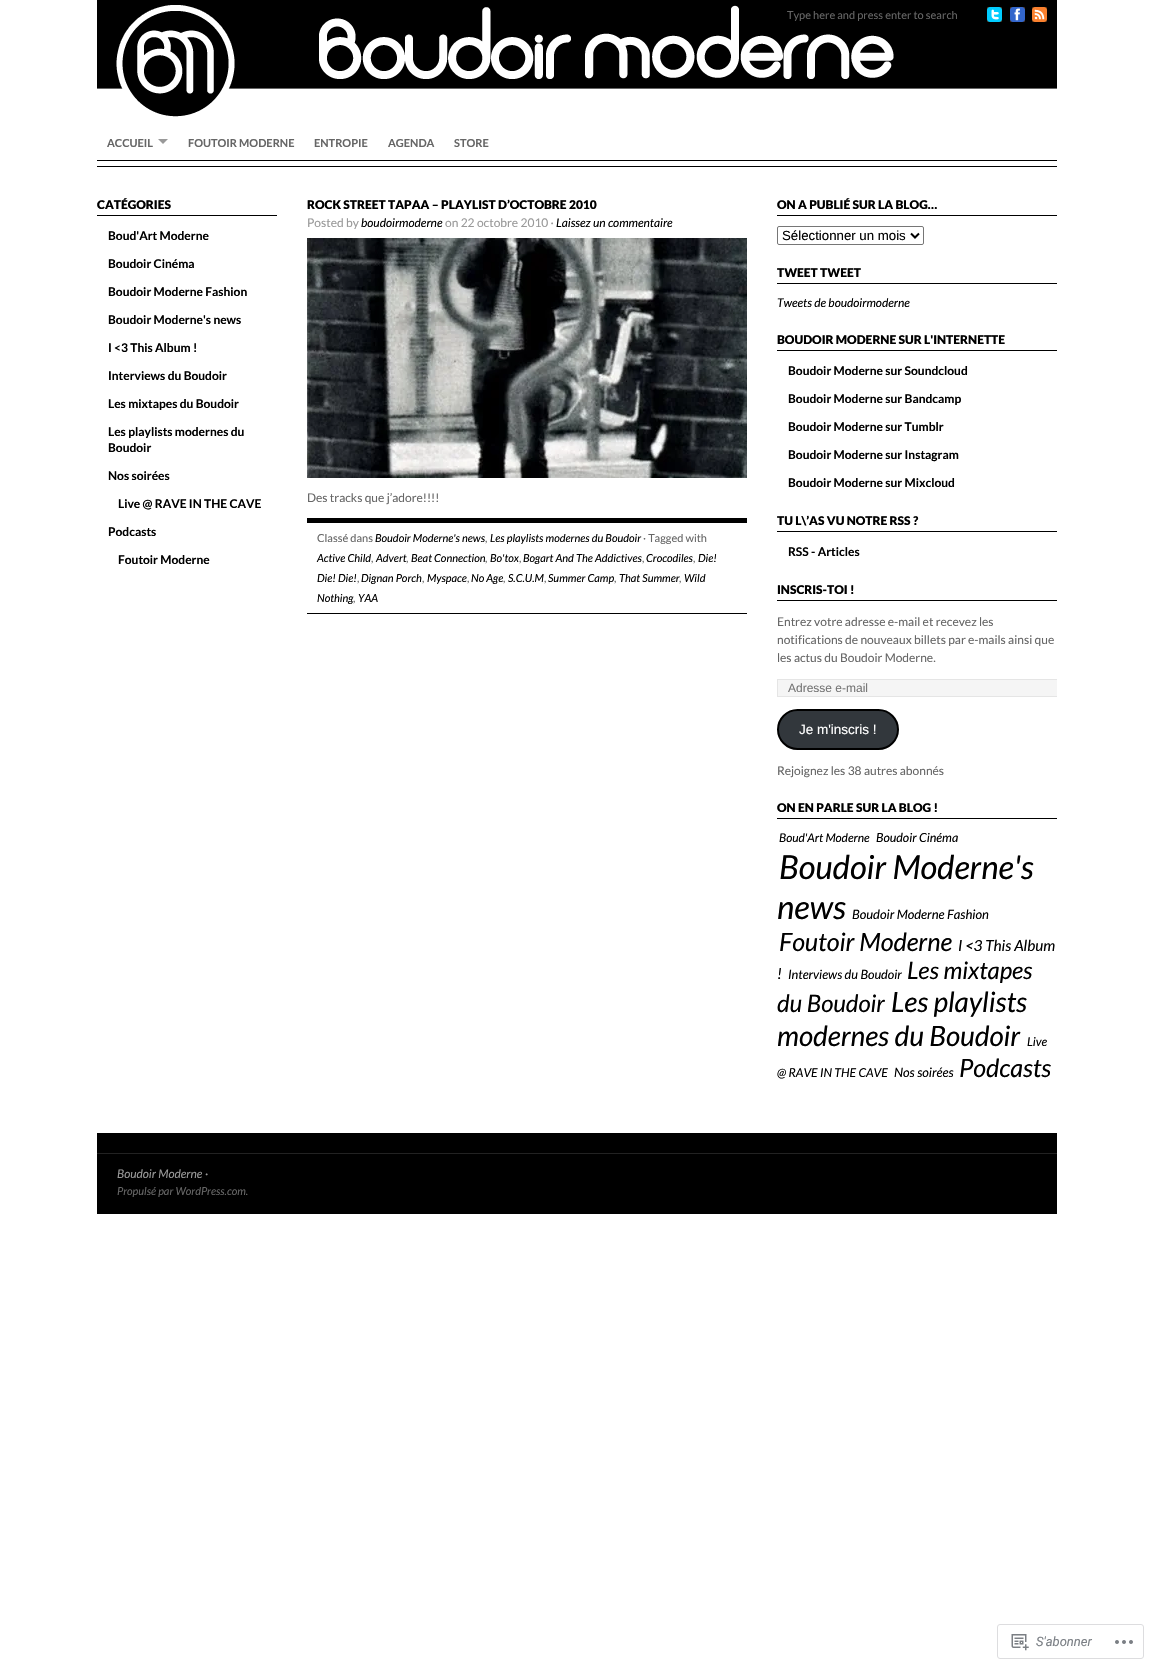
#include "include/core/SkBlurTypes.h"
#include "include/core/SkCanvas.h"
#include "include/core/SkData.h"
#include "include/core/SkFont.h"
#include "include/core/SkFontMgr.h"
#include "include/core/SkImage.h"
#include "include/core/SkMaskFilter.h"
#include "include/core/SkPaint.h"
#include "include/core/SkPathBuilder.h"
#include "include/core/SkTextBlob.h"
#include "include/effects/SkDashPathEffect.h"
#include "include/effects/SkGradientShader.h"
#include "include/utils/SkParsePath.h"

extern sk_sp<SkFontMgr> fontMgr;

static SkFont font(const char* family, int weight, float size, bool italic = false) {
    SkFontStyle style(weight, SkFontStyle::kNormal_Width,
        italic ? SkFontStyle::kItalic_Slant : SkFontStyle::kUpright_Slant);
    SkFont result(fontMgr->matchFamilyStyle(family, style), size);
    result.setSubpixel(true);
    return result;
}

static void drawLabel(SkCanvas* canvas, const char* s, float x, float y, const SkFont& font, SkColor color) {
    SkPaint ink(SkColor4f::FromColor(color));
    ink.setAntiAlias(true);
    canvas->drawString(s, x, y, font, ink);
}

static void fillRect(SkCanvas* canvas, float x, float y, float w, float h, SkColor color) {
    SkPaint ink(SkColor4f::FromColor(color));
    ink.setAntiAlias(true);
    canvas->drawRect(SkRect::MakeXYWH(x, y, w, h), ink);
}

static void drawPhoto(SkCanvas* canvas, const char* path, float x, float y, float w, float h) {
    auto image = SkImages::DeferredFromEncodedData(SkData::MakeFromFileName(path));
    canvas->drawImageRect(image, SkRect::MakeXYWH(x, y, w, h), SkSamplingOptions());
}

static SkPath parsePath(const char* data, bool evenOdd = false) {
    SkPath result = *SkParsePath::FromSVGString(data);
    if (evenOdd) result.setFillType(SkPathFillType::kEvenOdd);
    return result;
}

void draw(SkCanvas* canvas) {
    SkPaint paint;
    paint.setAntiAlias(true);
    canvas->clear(0xFFFFFFFF);
    drawPhoto(canvas, "assets/img1.png", 97, 0, 960, 117);
    SkFont font1 = font("Lato", 400, 11);
    drawLabel(canvas, "Type here and press enter to search", 787, 19, font1, 0xFF666666);
    drawPhoto(canvas, "assets/img2.png", 987, 7, 15, 15);
    drawPhoto(canvas, "assets/img3.png", 1010, 7, 15, 15);
    drawPhoto(canvas, "assets/img4.png", 1032, 7, 15, 15);
    fillRect(canvas, 97, 160, 960, 1, 0xFF000000);
    SkFont font2 = font("Lato", 700, 11);
    drawLabel(canvas, "ACCUEIL", 107, 147, font2, 0xFF666666);
    paint.setColor(0xFF999999);
    canvas->drawPath(parsePath("M158 139H168L163 144Z"), paint);
    drawLabel(canvas, "FOUTOIR MODERNE", 188, 147, font2, 0xFF666666);
    drawLabel(canvas, "ENTROPIE", 314, 147, font2, 0xFF666666);
    drawLabel(canvas, "AGENDA", 388, 147, font2, 0xFF666666);
    drawLabel(canvas, "STORE", 454, 147, font2, 0xFF666666);
    fillRect(canvas, 97, 166, 960, 1, 0xFF000000);
    fillRect(canvas, 97, 215, 180, 1, 0xFF000000);
    SkFont font3 = font("Lato", 900, 12);
    drawLabel(canvas, "CATÉGORIES", 97, 209, font3, 0xFF000000);
    SkFont font4 = font("Lato", 700, 12);
    drawLabel(canvas, "Boud'Art Moderne", 108, 240, font4, 0xFF000000);
    drawLabel(canvas, "Boudoir Cinéma", 108, 268, font4, 0xFF000000);
    drawLabel(canvas, "Boudoir Moderne Fashion", 108, 296, font4, 0xFF000000);
    drawLabel(canvas, "Boudoir Moderne's news", 108, 324, font4, 0xFF000000);
    drawLabel(canvas, "I <3 This Album !", 108, 352, font4, 0xFF000000);
    drawLabel(canvas, "Interviews du Boudoir", 108, 380, font4, 0xFF000000);
    drawLabel(canvas, "Les mixtapes du Boudoir", 108, 408, font4, 0xFF000000);
    drawLabel(canvas, "Les playlists modernes du", 108, 436, font4, 0xFF000000);
    drawLabel(canvas, "Boudoir", 108, 452, font4, 0xFF000000);
    drawLabel(canvas, "Nos soirées", 108, 480, font4, 0xFF000000);
    drawLabel(canvas, "Live @ RAVE IN THE CAVE", 118, 508, font4, 0xFF000000);
    drawLabel(canvas, "Podcasts", 108, 536, font4, 0xFF000000);
    drawLabel(canvas, "Foutoir Moderne", 118, 564, font4, 0xFF000000);
    drawLabel(canvas, "ROCK STREET TAPAA – PLAYLIST D’OCTOBRE 2010", 307, 209, font3, 0xFF000000);
    SkFont font5 = font("Lato", 400, 12);
    drawLabel(canvas, "Posted by", 307, 227, font5, 0xFF999999);
    SkFont font6 = font("Lato", 400, 12, true);
    drawLabel(canvas, "boudoirmoderne", 361, 227, font6, 0xFF000000);
    drawLabel(canvas, "on 22 octobre 2010 ·", 445, 227, font5, 0xFF999999);
    drawLabel(canvas, "Laissez un commentaire", 556, 227, font6, 0xFF000000);
    drawPhoto(canvas, "assets/img5.png", 307, 238, 440, 240);
    drawLabel(canvas, "Des tracks que j’adore!!!!", 307, 502, font5, 0xFF666666);
    fillRect(canvas, 307, 518, 440, 5, 0xFF000000);
    fillRect(canvas, 307, 613, 440, 1, 0xFF000000);
    drawLabel(canvas, "Classé dans", 317, 542, font1, 0xFF666666);
    SkFont font7 = font("Lato", 400, 11, true);
    drawLabel(canvas, "Boudoir Moderne's news", 375, 542, font7, 0xFF000000);
    drawLabel(canvas, ",", 485, 542, font1, 0xFF666666);
    drawLabel(canvas, "Les playlists modernes du Boudoir", 490, 542, font7, 0xFF000000);
    drawLabel(canvas, "· Tagged with", 643, 542, font1, 0xFF666666);
    drawLabel(canvas, "Active Child", 317, 562, font7, 0xFF000000);
    drawLabel(canvas, ",", 371, 562, font1, 0xFF666666);
    drawLabel(canvas, "Advert", 376, 562, font7, 0xFF000000);
    drawLabel(canvas, "Beat Connection", 411, 562, font7, 0xFF000000);
    drawLabel(canvas, "Bo'tox", 490, 562, font7, 0xFF000000);
    drawLabel(canvas, "Bogart And The Addictives", 523, 562, font7, 0xFF000000);
    drawLabel(canvas, "Crocodiles", 646, 562, font7, 0xFF000000);
    drawLabel(canvas, "Die!", 698, 562, font7, 0xFF000000);
    drawLabel(canvas, ",", 406, 562, font1, 0xFF666666);
    drawLabel(canvas, ",", 485, 562, font1, 0xFF666666);
    drawLabel(canvas, ",", 519, 562, font1, 0xFF666666);
    drawLabel(canvas, ",", 642, 562, font1, 0xFF666666);
    drawLabel(canvas, ",", 693, 562, font1, 0xFF666666);
    drawLabel(canvas, "Die! Die!", 317, 582, font7, 0xFF000000);
    drawLabel(canvas, ",", 357, 582, font1, 0xFF666666);
    drawLabel(canvas, "Dignan Porch", 361, 582, font7, 0xFF000000);
    drawLabel(canvas, ",", 422, 582, font1, 0xFF666666);
    drawLabel(canvas, "Myspace", 427, 582, font7, 0xFF000000);
    drawLabel(canvas, ",", 467, 582, font1, 0xFF666666);
    drawLabel(canvas, "No Age", 471, 582, font7, 0xFF000000);
    drawLabel(canvas, ",", 503, 582, font1, 0xFF666666);
    drawLabel(canvas, "S.C.U.M", 508, 582, font7, 0xFF000000);
    drawLabel(canvas, ",", 544, 582, font1, 0xFF666666);
    drawLabel(canvas, "Summer Camp", 548, 582, font7, 0xFF000000);
    drawLabel(canvas, ",", 614, 582, font1, 0xFF666666);
    drawLabel(canvas, "That Summer", 619, 582, font7, 0xFF000000);
    drawLabel(canvas, ",", 679, 582, font1, 0xFF666666);
    drawLabel(canvas, "Wild", 684, 582, font7, 0xFF000000);
    drawLabel(canvas, "Nothing", 317, 602, font7, 0xFF000000);
    drawLabel(canvas, ",", 353, 602, font1, 0xFF666666);
    drawLabel(canvas, "YAA", 358, 602, font7, 0xFF000000);
    fillRect(canvas, 777, 215, 280, 1, 0xFF000000);
    drawLabel(canvas, "ON A PUBLIÉ SUR LA BLOG…", 777, 209, font3, 0xFF000000);
    paint.setStroke(true);
    paint.setStrokeWidth(1);
    paint.setColor(0xFF767676);
    canvas->drawRoundRect(SkRect::MakeXYWH(777.5f, 226.5f, 146, 18), 1.5f, 1.5f, paint);
    paint.setStrokeWidth(2);
    paint.setColor(0xFF000000);
    canvas->drawPath(parsePath("M911 233.5L915 237.5L919 233.5"), paint);
    SkFont font8 = font("Liberation Sans", 400, 13.25f);
    drawLabel(canvas, "Sélectionner un mois", 782, 240, font8, 0xFF000000);
    fillRect(canvas, 777, 283, 280, 1, 0xFF000000);
    drawLabel(canvas, "TWEET TWEET", 777, 277, font3, 0xFF000000);
    drawLabel(canvas, "Tweets de boudoirmoderne", 777, 307, font6, 0xFF000000);
    fillRect(canvas, 777, 350, 280, 1, 0xFF000000);
    drawLabel(canvas, "BOUDOIR MODERNE SUR L'INTERNETTE", 777, 344, font3, 0xFF000000);
    drawLabel(canvas, "Boudoir Moderne sur Soundcloud", 788, 375, font4, 0xFF000000);
    drawLabel(canvas, "Boudoir Moderne sur Bandcamp", 788, 403, font4, 0xFF000000);
    drawLabel(canvas, "Boudoir Moderne sur Tumblr", 788, 431, font4, 0xFF000000);
    drawLabel(canvas, "Boudoir Moderne sur Instagram", 788, 459, font4, 0xFF000000);
    drawLabel(canvas, "Boudoir Moderne sur Mixcloud", 788, 487, font4, 0xFF000000);
    fillRect(canvas, 777, 531, 280, 1, 0xFF000000);
    drawLabel(canvas, "TU L\\’AS VU NOTRE RSS ?", 777, 525, font3, 0xFF000000);
    drawLabel(canvas, "RSS - Articles", 788, 556, font4, 0xFF000000);
    fillRect(canvas, 777, 600, 280, 1, 0xFF000000);
    drawLabel(canvas, "INSCRIS-TOI !", 777, 594, font3, 0xFF000000);
    drawLabel(canvas, "Entrez votre adresse e-mail et recevez les", 777, 626, font5, 0xFF666666);
    drawLabel(canvas, "notifications de nouveaux billets par e-mails ainsi que", 777, 644, font5, 0xFF666666);
    drawLabel(canvas, "les actus du Boudoir Moderne.", 777, 662, font5, 0xFF666666);
    fillRect(canvas, 778, 680, 279, 16, 0xFFF5F5F5);
    canvas->save();
    canvas->clipRect(SkRect::MakeXYWH(777, 197, 280, 906));
    paint.setStrokeWidth(1);
    paint.setColor(0xFFE5E5E5);
    canvas->drawRect(SkRect::MakeXYWH(777.5f, 679.5f, 287, 17), paint);
    canvas->restore();
    SkFont font9 = font("Liberation Sans", 400, 12);
    drawLabel(canvas, "Adresse e-mail", 788, 692, font9, 0xFF757575);
    paint.setStroke(false);
    paint.setColor(0xFF32373C);
    canvas->drawRoundRect(SkRect::MakeXYWH(778, 710, 120, 39), 19.5f, 19.5f, paint);
    paint.setStroke(true);
    paint.setStrokeWidth(2);
    paint.setColor(0xFF000000);
    canvas->drawRoundRect(SkRect::MakeXYWH(778, 710, 120, 39), 19.5f, 19.5f, paint);
    SkFont font10 = font("Liberation Sans", 400, 13.5f);
    drawLabel(canvas, "Je m'inscris !", 799, 734, font10, 0xFFFFFFFF);
    drawLabel(canvas, "Rejoignez les 38 autres abonnés", 777, 775, font5, 0xFF666666);
    fillRect(canvas, 777, 818, 280, 1, 0xFF000000);
    drawLabel(canvas, "ON EN PARLE SUR LA BLOG !", 777, 812, font3, 0xFF000000);
    drawLabel(canvas, "Boud'Art Moderne", 779, 842, font6, 0xFF000000);
    SkFont font11 = font("Lato", 400, 12.5f, true);
    drawLabel(canvas, "Boudoir Cinéma", 876, 842, font11, 0xFF000000);
    SkFont font12 = font("Lato", 400, 33, true);
    drawLabel(canvas, "Boudoir Moderne's", 779, 879, font12, 0xFF000000);
    drawLabel(canvas, "news", 777, 919, font12, 0xFF000000);
    SkFont font13 = font("Lato", 400, 13, true);
    drawLabel(canvas, "Boudoir Moderne Fashion", 852, 919, font13, 0xFF000000);
    SkFont font14 = font("Lato", 400, 25.25f, true);
    drawLabel(canvas, "Foutoir Moderne", 779, 951, font14, 0xFF000000);
    SkFont font15 = font("Lato", 400, 15.25f, true);
    drawLabel(canvas, "I <3 This Album", 958, 951, font15, 0xFF000000);
    drawLabel(canvas, "!", 777, 979, font15, 0xFF000000);
    SkFont font16 = font("Lato", 400, 12.75f, true);
    drawLabel(canvas, "Interviews du Boudoir", 788, 979, font16, 0xFF000000);
    SkFont font17 = font("Lato", 400, 24, true);
    drawLabel(canvas, "Les mixtapes", 907, 979, font17, 0xFF000000);
    drawLabel(canvas, "du Boudoir", 777, 1012, font17, 0xFF000000);
    SkFont font18 = font("Lato", 400, 28, true);
    drawLabel(canvas, "Les playlists", 891, 1012, font18, 0xFF000000);
    drawLabel(canvas, "modernes du Boudoir", 777, 1046, font18, 0xFF000000);
    SkFont font19 = font("Lato", 400, 12.25f, true);
    drawLabel(canvas, "Live", 1027, 1046, font19, 0xFF000000);
    drawLabel(canvas, "@ RAVE IN THE CAVE", 777, 1077, font19, 0xFF000000);
    drawLabel(canvas, "Nos soirées", 894, 1077, font13, 0xFF000000);
    drawLabel(canvas, "Podcasts", 959, 1077, font14, 0xFF000000);
    fillRect(canvas, 97, 1133, 960, 20, 0xFF000000);
    fillRect(canvas, 97, 1154, 960, 60, 0xFF000000);
    fillRect(canvas, 97, 1153, 960, 1, 0xFF222222);
    drawLabel(canvas, "Boudoir Moderne", 117, 1178, font6, 0xFF999999);
    drawLabel(canvas, "·", 205, 1178, font5, 0xFF999999);
    drawLabel(canvas, "Propulsé par WordPress.com.", 117, 1195, font7, 0xFF666666);
    paint.setStrokeWidth(1);
    paint.setColor(0xFFDDDDDF);
    canvas->drawRoundRect(SkRect::MakeXYWH(997.5f, 1624.5f, 146, 34), 2.5f, 2.5f, paint);
    drawPhoto(canvas, "assets/img6.png", 1011, 1634, 18, 17);
    SkFont font20 = font("Roboto", 400, 13, true);
    drawLabel(canvas, "S'abonner", 1036, 1646, font20, 0xFF7B7F85);
    drawPhoto(canvas, "assets/img7.png", 1115, 1640, 18, 4);
}
